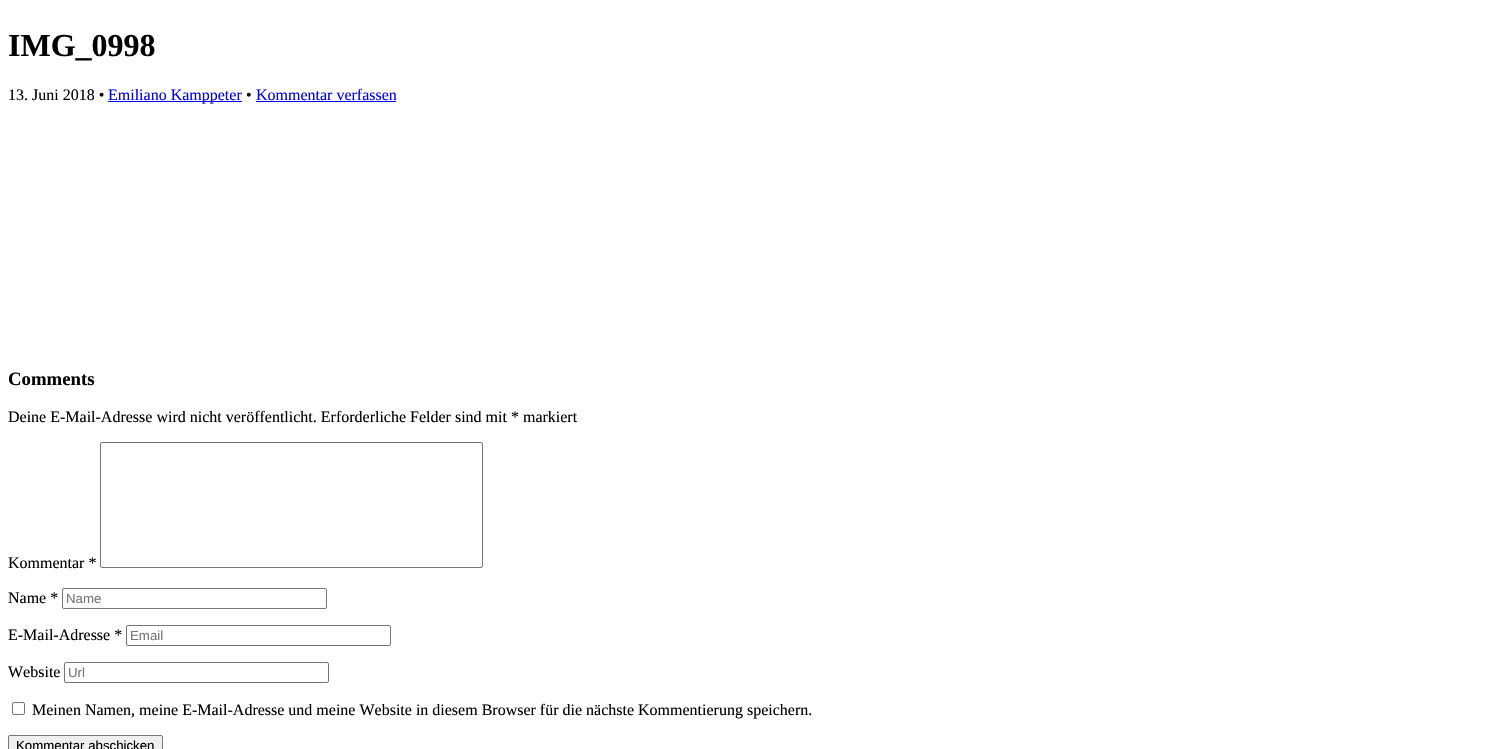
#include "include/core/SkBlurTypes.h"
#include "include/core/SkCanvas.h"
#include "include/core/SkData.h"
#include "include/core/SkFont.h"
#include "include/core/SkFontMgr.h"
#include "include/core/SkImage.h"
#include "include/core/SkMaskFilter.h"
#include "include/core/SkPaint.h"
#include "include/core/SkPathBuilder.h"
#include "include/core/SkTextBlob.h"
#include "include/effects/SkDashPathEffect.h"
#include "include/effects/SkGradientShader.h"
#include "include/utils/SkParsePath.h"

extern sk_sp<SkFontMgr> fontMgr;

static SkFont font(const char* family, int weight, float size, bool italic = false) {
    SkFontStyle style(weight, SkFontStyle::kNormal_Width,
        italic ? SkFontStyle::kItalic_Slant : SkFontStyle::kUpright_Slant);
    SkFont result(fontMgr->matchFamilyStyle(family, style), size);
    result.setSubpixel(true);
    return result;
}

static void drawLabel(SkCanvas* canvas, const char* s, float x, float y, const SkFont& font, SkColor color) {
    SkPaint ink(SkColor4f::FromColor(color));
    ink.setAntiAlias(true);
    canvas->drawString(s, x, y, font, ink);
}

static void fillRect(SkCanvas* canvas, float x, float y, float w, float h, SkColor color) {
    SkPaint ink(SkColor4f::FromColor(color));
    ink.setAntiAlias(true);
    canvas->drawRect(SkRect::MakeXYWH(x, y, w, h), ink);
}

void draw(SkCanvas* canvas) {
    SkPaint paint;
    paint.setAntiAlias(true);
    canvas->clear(0xFFFFFFFF);
    SkFont font1 = font("Liberation Serif", 700, 32);
    drawLabel(canvas, "IMG_0998", 8, 56, font1, 0xFF000000);
    SkFont font2 = font("Liberation Serif", 400, 16);
    drawLabel(canvas, "13. Juni 2018 •", 8, 100, font2, 0xFF000000);
    fillRect(canvas, 108, 101, 134, 1, 0xFF0000EE);
    drawLabel(canvas, "Emiliano Kamppeter", 108, 100, font2, 0xFF0000EE);
    drawLabel(canvas, "•", 246, 100, font2, 0xFF000000);
    drawLabel(canvas, "Kommentar verfassen", 256, 100, font2, 0xFF0000EE);
    fillRect(canvas, 256, 101, 140, 1, 0xFF0000EE);
    SkFont font3 = font("Liberation Serif", 700, 18.75f);
    drawLabel(canvas, "Comments", 8, 385, font3, 0xFF000000);
    drawLabel(canvas, "Deine E-Mail-Adresse wird nicht veröffentlicht. Erforderliche Felder sind mit * markiert", 8, 422, font2, 0xFF000000);
    drawLabel(canvas, "Kommentar *", 8, 568, font2, 0xFF000000);
    paint.setStroke(true);
    paint.setStrokeWidth(1);
    paint.setColor(0xFF767676);
    canvas->drawRoundRect(SkRect::MakeXYWH(100.5f, 442.5f, 382, 125), 1.5f, 1.5f, paint);
    drawLabel(canvas, "Name *", 8, 603, font2, 0xFF000000);
    canvas->drawRoundRect(SkRect::MakeXYWH(62.5f, 588.5f, 264, 20), 1.5f, 1.5f, paint);
    SkFont font4 = font("Liberation Sans", 400, 13.25f);
    drawLabel(canvas, "Name", 66, 603, font4, 0xFF757575);
    drawLabel(canvas, "E-Mail-Adresse *", 8, 640, font2, 0xFF000000);
    canvas->drawRoundRect(SkRect::MakeXYWH(126.5f, 625.5f, 264, 20), 1.5f, 1.5f, paint);
    drawLabel(canvas, "Email", 130, 640, font4, 0xFF757575);
    drawLabel(canvas, "Website", 8, 677, font2, 0xFF000000);
    canvas->drawRoundRect(SkRect::MakeXYWH(64.5f, 662.5f, 264, 20), 1.5f, 1.5f, paint);
    drawLabel(canvas, "Url", 68, 677, font4, 0xFF757575);
    canvas->drawRoundRect(SkRect::MakeXYWH(12.5f, 702.5f, 12, 12), 1.5f, 1.5f, paint);
    drawLabel(canvas, "Meinen Namen, meine E-Mail-Adresse und meine Website in diesem Browser für die nächste Kommentierung speichern.", 32, 715, font2, 0xFF000000);
    paint.setStroke(false);
    paint.setColor(0xFFEFEFEF);
    canvas->drawRoundRect(SkRect::MakeXYWH(8.5f, 735.5f, 154, 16), 1.5f, 1.5f, paint);
    paint.setStroke(true);
    paint.setColor(0xFF767676);
    canvas->drawRoundRect(SkRect::MakeXYWH(8.5f, 735.5f, 154, 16), 1.5f, 1.5f, paint);
    drawLabel(canvas, "Kommentar abschicken", 16, 750, font4, 0xFF000000);
}
